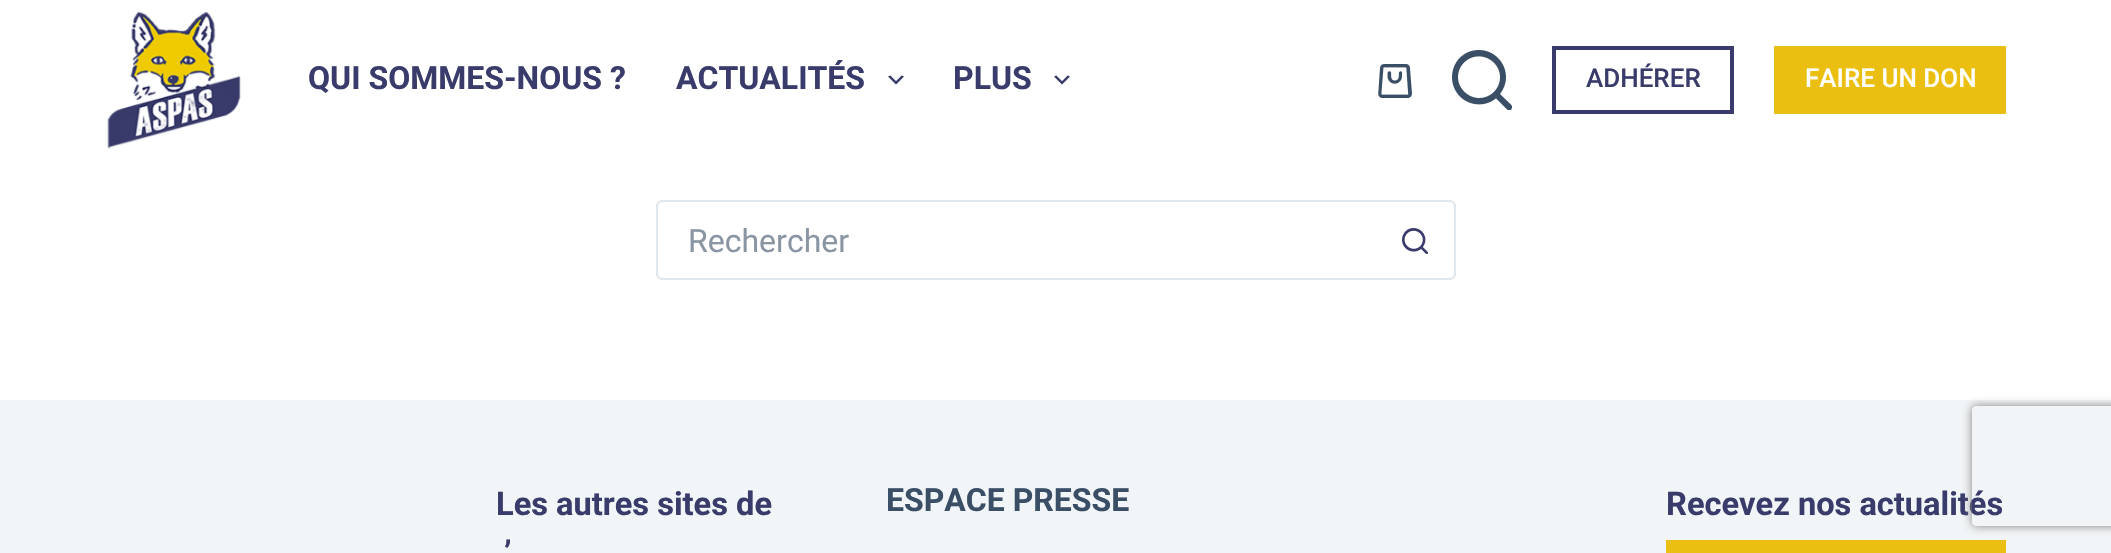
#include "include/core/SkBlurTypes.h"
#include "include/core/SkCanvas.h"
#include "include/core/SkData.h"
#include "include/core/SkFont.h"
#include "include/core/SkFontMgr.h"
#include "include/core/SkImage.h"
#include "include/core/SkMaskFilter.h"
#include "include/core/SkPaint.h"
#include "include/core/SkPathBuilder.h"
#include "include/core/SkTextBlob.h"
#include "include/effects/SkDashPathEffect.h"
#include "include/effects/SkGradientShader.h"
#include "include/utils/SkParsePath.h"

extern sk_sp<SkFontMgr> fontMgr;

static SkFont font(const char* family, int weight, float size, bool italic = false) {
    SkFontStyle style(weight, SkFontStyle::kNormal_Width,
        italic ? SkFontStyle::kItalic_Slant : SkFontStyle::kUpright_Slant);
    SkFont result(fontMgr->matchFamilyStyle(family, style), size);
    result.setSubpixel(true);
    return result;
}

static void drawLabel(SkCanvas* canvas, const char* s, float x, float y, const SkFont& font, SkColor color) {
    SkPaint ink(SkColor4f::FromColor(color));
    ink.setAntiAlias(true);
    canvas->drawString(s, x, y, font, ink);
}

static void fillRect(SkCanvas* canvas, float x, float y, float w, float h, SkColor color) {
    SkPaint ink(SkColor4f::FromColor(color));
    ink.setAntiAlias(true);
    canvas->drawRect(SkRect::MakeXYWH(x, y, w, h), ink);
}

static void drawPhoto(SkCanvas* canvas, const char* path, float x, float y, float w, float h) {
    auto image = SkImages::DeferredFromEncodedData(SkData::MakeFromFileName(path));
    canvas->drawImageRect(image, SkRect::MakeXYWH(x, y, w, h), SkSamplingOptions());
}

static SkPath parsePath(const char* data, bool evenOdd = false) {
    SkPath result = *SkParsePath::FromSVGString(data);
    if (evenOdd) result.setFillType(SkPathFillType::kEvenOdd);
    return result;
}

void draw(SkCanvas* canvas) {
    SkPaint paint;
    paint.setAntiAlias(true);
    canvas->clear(0xFFFFFFFF);
    drawPhoto(canvas, "assets/img1.png", 107, 11, 134, 138);
    SkFont font1 = font("Roboto", 700, 32);
    drawLabel(canvas, "QUI SOMMES-NOUS ?", 308, 89, font1, 0xFF393C6B);
    drawLabel(canvas, "ACTUALITÉS", 676, 89, font1, 0xFF393C6B);
    drawPhoto(canvas, "assets/img2.png", 888, 75, 16, 10);
    drawLabel(canvas, "PLUS", 953, 89, font1, 0xFF393C6B);
    drawPhoto(canvas, "assets/img2.png", 1054, 75, 16, 10);
    drawPhoto(canvas, "assets/img3.png", 1378, 64, 34, 34);
    drawPhoto(canvas, "assets/img4.png", 1452, 50, 60, 60);
    paint.setStroke(true);
    paint.setStrokeWidth(4);
    paint.setColor(0xFF393C6B);
    canvas->drawRect(SkRect::MakeXYWH(1554, 48, 178, 64), paint);
    SkFont font2 = font("Roboto", 500, 26);
    drawLabel(canvas, "ADHÉRER", 1586, 87, font2, 0xFF393C6B);
    fillRect(canvas, 1774, 46, 232, 68, 0xFFEBBF11);
    drawLabel(canvas, "FAIRE UN DON", 1805, 87, font2, 0xFFFFFFFF);
    paint.setStroke(false);
    paint.setColor(0xFFE1E8ED);
    canvas->drawPath(parsePath("M662 200H1376V280H662C659 280 656 277 656 274V206C656 203 659 200 662 200ZM662 202H1376V278H662C660 278 658 276 658 274V206C658 204 660 202 662 202Z", true), paint);
    SkFont font3 = font("Roboto", 400, 32);
    drawLabel(canvas, "Rechercher", 688, 252, font3, 0xFF8995A3);
    canvas->drawPath(parsePath("M1376 200H1450C1453 200 1456 203 1456 206V274C1456 277 1453 280 1450 280H1376ZM1376 202H1450C1452 202 1454 204 1454 206V274C1454 276 1452 278 1450 278H1376Z", true), paint);
    drawPhoto(canvas, "assets/img5.png", 1402, 228, 26, 26);
    fillRect(canvas, 0, 400, 2111, 153, 0xFFF2F5F7);
    SkFont font4 = font("Roboto", 700, 32.6f);
    drawLabel(canvas, "Les autres sites de", 496, 515, font4, 0xFF393C6B);
    drawLabel(canvas, "’", 504, 564, font4, 0xFF393C6B);
    drawLabel(canvas, "ESPACE PRESSE", 886, 511, font1, 0xFF3A4F66);
    drawLabel(canvas, "Recevez nos actualités", 1666, 515, font4, 0xFF393C6B);
    fillRect(canvas, 1666, 540, 340, 13, 0xFFEBBF11);
    canvas->save();
    canvas->clipPath(parsePath("M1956 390H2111V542H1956ZM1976 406H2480C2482 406 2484 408 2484 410V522C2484 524 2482 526 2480 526H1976C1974 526 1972 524 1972 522V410C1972 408 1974 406 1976 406Z", true), true);
    paint.setColor(0xFF808080);
    paint.setMaskFilter(SkMaskFilter::MakeBlur(kNormal_SkBlurStyle, 5));
    canvas->drawRoundRect(SkRect::MakeXYWH(1972, 406, 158, 120), 4, 4, paint);
    paint.setMaskFilter(nullptr);
    canvas->restore();
}
